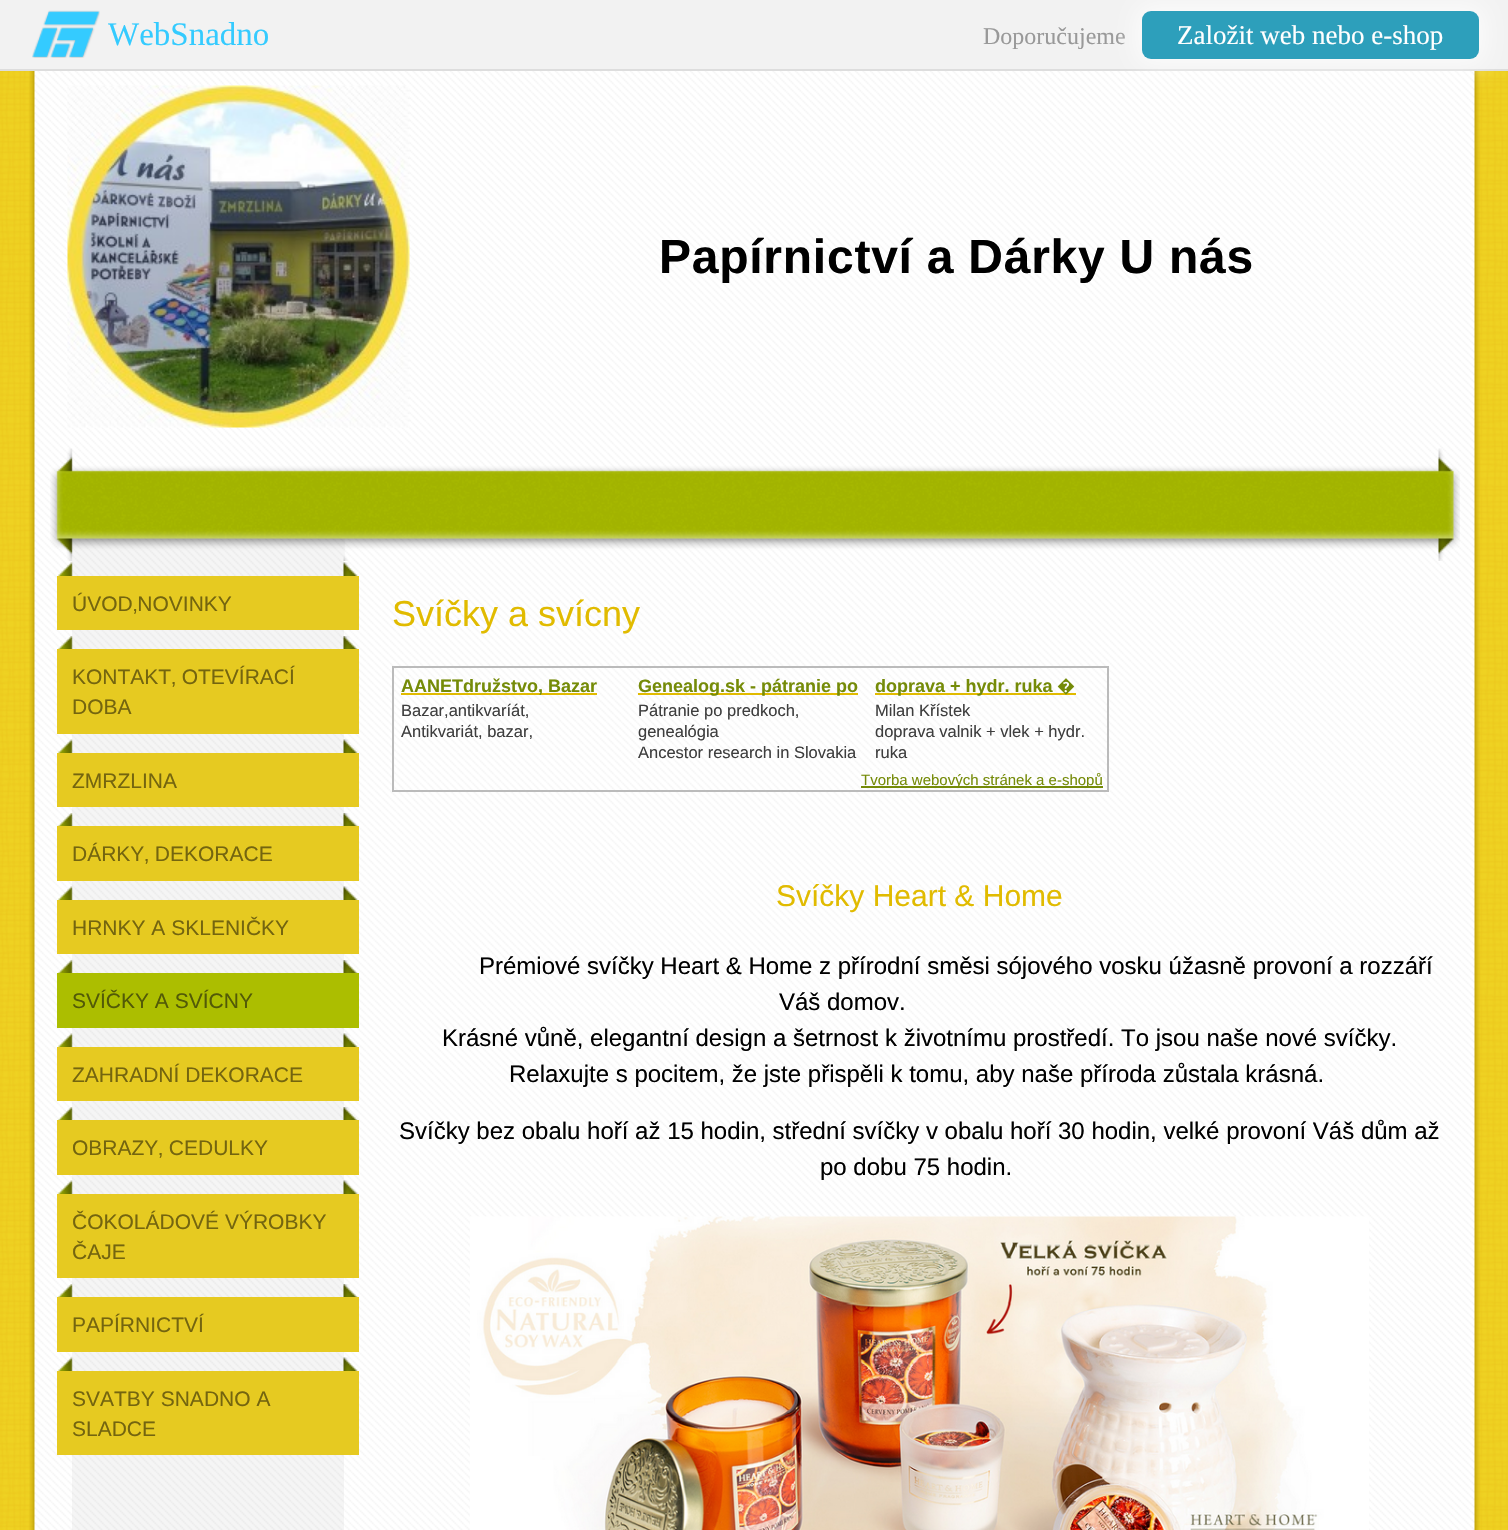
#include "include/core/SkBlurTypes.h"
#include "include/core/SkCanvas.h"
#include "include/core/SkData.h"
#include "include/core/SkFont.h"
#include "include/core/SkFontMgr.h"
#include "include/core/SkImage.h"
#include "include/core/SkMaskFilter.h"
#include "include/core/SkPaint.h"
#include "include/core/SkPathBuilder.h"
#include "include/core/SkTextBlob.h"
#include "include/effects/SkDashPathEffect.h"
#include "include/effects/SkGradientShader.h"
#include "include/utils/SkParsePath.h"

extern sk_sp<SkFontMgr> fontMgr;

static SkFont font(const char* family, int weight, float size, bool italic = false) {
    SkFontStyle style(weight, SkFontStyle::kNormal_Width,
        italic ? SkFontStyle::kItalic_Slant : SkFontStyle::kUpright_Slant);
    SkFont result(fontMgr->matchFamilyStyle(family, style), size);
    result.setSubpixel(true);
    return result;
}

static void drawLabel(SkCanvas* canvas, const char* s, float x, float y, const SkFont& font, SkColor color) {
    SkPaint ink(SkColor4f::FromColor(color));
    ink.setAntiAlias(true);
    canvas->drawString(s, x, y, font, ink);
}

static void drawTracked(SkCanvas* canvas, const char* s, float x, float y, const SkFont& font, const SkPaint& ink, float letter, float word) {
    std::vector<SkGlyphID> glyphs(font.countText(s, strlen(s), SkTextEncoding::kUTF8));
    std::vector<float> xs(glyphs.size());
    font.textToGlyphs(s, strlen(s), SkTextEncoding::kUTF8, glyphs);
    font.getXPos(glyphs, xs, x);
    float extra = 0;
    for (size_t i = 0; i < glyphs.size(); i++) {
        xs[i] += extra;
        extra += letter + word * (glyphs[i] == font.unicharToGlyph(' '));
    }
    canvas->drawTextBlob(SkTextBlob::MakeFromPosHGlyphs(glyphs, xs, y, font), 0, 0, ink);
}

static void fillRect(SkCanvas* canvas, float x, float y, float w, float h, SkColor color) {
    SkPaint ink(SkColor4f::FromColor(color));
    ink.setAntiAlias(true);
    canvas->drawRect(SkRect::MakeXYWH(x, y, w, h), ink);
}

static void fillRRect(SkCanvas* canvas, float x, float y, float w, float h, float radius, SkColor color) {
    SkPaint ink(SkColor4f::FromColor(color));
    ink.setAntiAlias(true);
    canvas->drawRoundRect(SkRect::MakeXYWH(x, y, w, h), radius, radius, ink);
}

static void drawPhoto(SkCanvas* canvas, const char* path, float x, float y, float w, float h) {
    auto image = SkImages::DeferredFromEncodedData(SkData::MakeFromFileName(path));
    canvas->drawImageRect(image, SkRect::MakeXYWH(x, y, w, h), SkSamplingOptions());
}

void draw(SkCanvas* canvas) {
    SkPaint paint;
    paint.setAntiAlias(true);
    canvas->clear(0xFFFFFFFF);
    drawPhoto(canvas, "assets/img1.png", 0, 71, 1508, 1459);
    fillRect(canvas, 0, 0, 1508, 69, 0xFFF2F2F2);
    fillRect(canvas, 0, 69, 1508, 2, 0xFFDDDDDD);
    drawPhoto(canvas, "assets/img2.png", 32, 10, 68, 48);
    SkFont font1 = font("Liberation Serif", 400, 33);
    drawLabel(canvas, "WebSnadno", 108, 45, font1, 0xFF34CBFF);
    SkFont font2 = font("Liberation Serif", 400, 24);
    drawLabel(canvas, "Doporučujeme", 983, 44, font2, 0xFF999999);
    drawPhoto(canvas, "assets/img3.png", 29, 71, 1451, 1459);
    paint.setColor(0xBFFFFFFF);
    paint.setMaskFilter(SkMaskFilter::MakeBlur(kNormal_SkBlurStyle, 12));
    canvas->drawRoundRect(SkRect::MakeXYWH(1136, 5, 349, 60), 15, 15, paint);
    paint.setMaskFilter(nullptr);
    fillRRect(canvas, 1142, 11, 337, 48, 9, 0xFF2D9FBB);
    SkFont font3 = font("Liberation Serif", 400, 27);
    drawLabel(canvas, "Založit web nebo e-shop", 1177, 44, font3, 0xFFFFFFFF);
    drawPhoto(canvas, "assets/img4.png", 67, 85, 343, 343);
    SkFont font4 = font("Liberation Sans", 700, 48);
    paint.setColor(0xFF000000);
    drawTracked(canvas, "Papírnictví a Dárky U nás", 659, 273, font4, paint, 0.75f, 0);
    drawPhoto(canvas, "assets/img5.png", 50, 448, 1410, 113);
    fillRect(canvas, 72, 561, 272, 969, 0x0A000000);
    drawPhoto(canvas, "assets/img6.png", 58, 562, 300, 14);
    fillRect(canvas, 57, 576, 302, 54, 0xFFE6CA21);
    SkFont font5 = font("Liberation Sans", 400, 21);
    drawLabel(canvas, "ÚVOD‚NOVINKY", 72, 611, font5, 0xFF74650F);
    drawPhoto(canvas, "assets/img7.png", 58, 636, 300, 13);
    fillRect(canvas, 57, 649, 302, 85, 0xFFE6CA21);
    drawLabel(canvas, "KONTAKT‚ OTEVÍRACÍ", 72, 684, font5, 0xFF74650F);
    drawLabel(canvas, "DOBA", 72, 714, font5, 0xFF74650F);
    drawPhoto(canvas, "assets/img8.png", 58, 739, 300, 14);
    fillRect(canvas, 57, 753, 302, 54, 0xFFE6CA21);
    drawLabel(canvas, "ZMRZLINA", 72, 788, font5, 0xFF74650F);
    drawPhoto(canvas, "assets/img9.png", 58, 813, 300, 13);
    fillRect(canvas, 57, 826, 302, 55, 0xFFE6CA21);
    drawLabel(canvas, "DÁRKY‚ DEKORACE", 72, 861, font5, 0xFF74650F);
    drawPhoto(canvas, "assets/img10.png", 58, 886, 300, 14);
    fillRect(canvas, 57, 900, 302, 54, 0xFFE6CA21);
    drawLabel(canvas, "HRNKY A SKLENIČKY", 72, 935, font5, 0xFF74650F);
    drawPhoto(canvas, "assets/img11.png", 58, 960, 300, 13);
    fillRect(canvas, 57, 973, 302, 55, 0xFFACBE00);
    drawLabel(canvas, "SVÍČKY A SVÍCNY", 72, 1008, font5, 0xFF525A07);
    drawPhoto(canvas, "assets/img12.png", 58, 1033, 300, 14);
    fillRect(canvas, 57, 1047, 302, 54, 0xFFE6CA21);
    drawLabel(canvas, "ZAHRADNÍ DEKORACE", 72, 1082, font5, 0xFF74650F);
    drawPhoto(canvas, "assets/img13.png", 58, 1107, 300, 13);
    fillRect(canvas, 57, 1120, 302, 55, 0xFFE6CA21);
    drawLabel(canvas, "OBRAZY‚ CEDULKY", 72, 1155, font5, 0xFF74650F);
    drawPhoto(canvas, "assets/img14.png", 58, 1180, 300, 14);
    fillRect(canvas, 57, 1194, 302, 84, 0xFFE6CA21);
    drawLabel(canvas, "ČOKOLÁDOVÉ VÝROBKY", 72, 1229, font5, 0xFF74650F);
    drawLabel(canvas, "ČAJE", 72, 1259, font5, 0xFF74650F);
    drawPhoto(canvas, "assets/img15.png", 58, 1284, 300, 13);
    fillRect(canvas, 57, 1297, 302, 55, 0xFFE6CA21);
    drawLabel(canvas, "PAPÍRNICTVÍ", 72, 1332, font5, 0xFF74650F);
    drawPhoto(canvas, "assets/img16.png", 58, 1357, 300, 14);
    fillRect(canvas, 57, 1371, 302, 84, 0xFFE6CA21);
    drawLabel(canvas, "SVATBY SNADNO A", 72, 1406, font5, 0xFF74650F);
    drawLabel(canvas, "SLADCE", 72, 1436, font5, 0xFF74650F);
    SkFont font6 = font("Liberation Sans", 400, 36);
    drawLabel(canvas, "Svíčky a svícny", 392, 626, font6, 0xFFE1BB00);
    paint.setStroke(true);
    paint.setStrokeWidth(2);
    paint.setColor(0xFFBBBBBB);
    canvas->drawRect(SkRect::MakeXYWH(393, 667, 715, 124), paint);
    fillRect(canvas, 401, 693, 196, 2, 0xFFE1BB00);
    SkFont font7 = font("Liberation Sans", 700, 18);
    drawLabel(canvas, "AANETdružstvo, Bazar", 401, 692, font7, 0xFF758B08);
    SkFont font8 = font("Liberation Sans", 400, 16.5f);
    drawLabel(canvas, "Bazar,antikvaríát,", 401, 716, font8, 0xFF3E3E3E);
    drawLabel(canvas, "Antikvariát, bazar,", 401, 737, font8, 0xFF3E3E3E);
    fillRect(canvas, 638, 693, 220, 2, 0xFFE1BB00);
    drawLabel(canvas, "Genealog.sk - pátranie po", 638, 692, font7, 0xFF758B08);
    drawLabel(canvas, "Pátranie po predkoch,", 638, 716, font8, 0xFF3E3E3E);
    drawLabel(canvas, "genealógia", 638, 737, font8, 0xFF3E3E3E);
    drawLabel(canvas, "Ancestor research in Slovakia", 638, 758, font8, 0xFF3E3E3E);
    fillRect(canvas, 875, 693, 201, 2, 0xFFE1BB00);
    drawLabel(canvas, "doprava + hydr. ruka", 875, 692, font7, 0xFF758B08);
    SkFont font9 = font("Noto Sans", 700, 18);
    drawLabel(canvas, "�", 1057, 692, font9, 0xFF758B08);
    drawLabel(canvas, "Milan Křístek", 875, 716, font8, 0xFF3E3E3E);
    drawLabel(canvas, "doprava valnik + vlek + hydr.", 875, 737, font8, 0xFF3E3E3E);
    drawLabel(canvas, "ruka", 875, 758, font8, 0xFF3E3E3E);
    fillRect(canvas, 861, 786, 242, 2, 0xFF758B08);
    SkFont font10 = font("Liberation Sans", 400, 15);
    drawLabel(canvas, "Tvorba webových stránek a e-shopů", 861, 785, font10, 0xFF758B08);
    SkFont font11 = font("Liberation Sans", 400, 30);
    drawLabel(canvas, "Svíčky Heart & Home", 776, 906, font11, 0xFFE1BB00);
    SkFont font12 = font("Liberation Sans", 400, 24);
    drawLabel(canvas, "Prémiové svíčky Heart & Home z přírodní směsi sójového vosku úžasně provoní a rozzáří", 479, 974, font12, 0xFF000000);
    drawLabel(canvas, "Váš domov.", 779, 1010, font12, 0xFF000000);
    drawLabel(canvas, "Krásné vůně, elegantní design a šetrnost k životnímu prostředí. To jsou naše nové svíčky.", 442, 1046, font12, 0xFF000000);
    drawLabel(canvas, "Relaxujte s pocitem, že jste přispěli k tomu, aby naše příroda zůstala krásná.", 509, 1082, font12, 0xFF000000);
    drawLabel(canvas, "Svíčky bez obalu hoří až 15 hodin, střední svíčky v obalu hoří 30 hodin, velké provoní Váš dům až", 399, 1139, font12, 0xFF000000);
    drawLabel(canvas, "po dobu 75 hodin.", 820, 1175, font12, 0xFF000000);
    drawPhoto(canvas, "assets/img17.png", 470, 1216, 899, 314);
}
